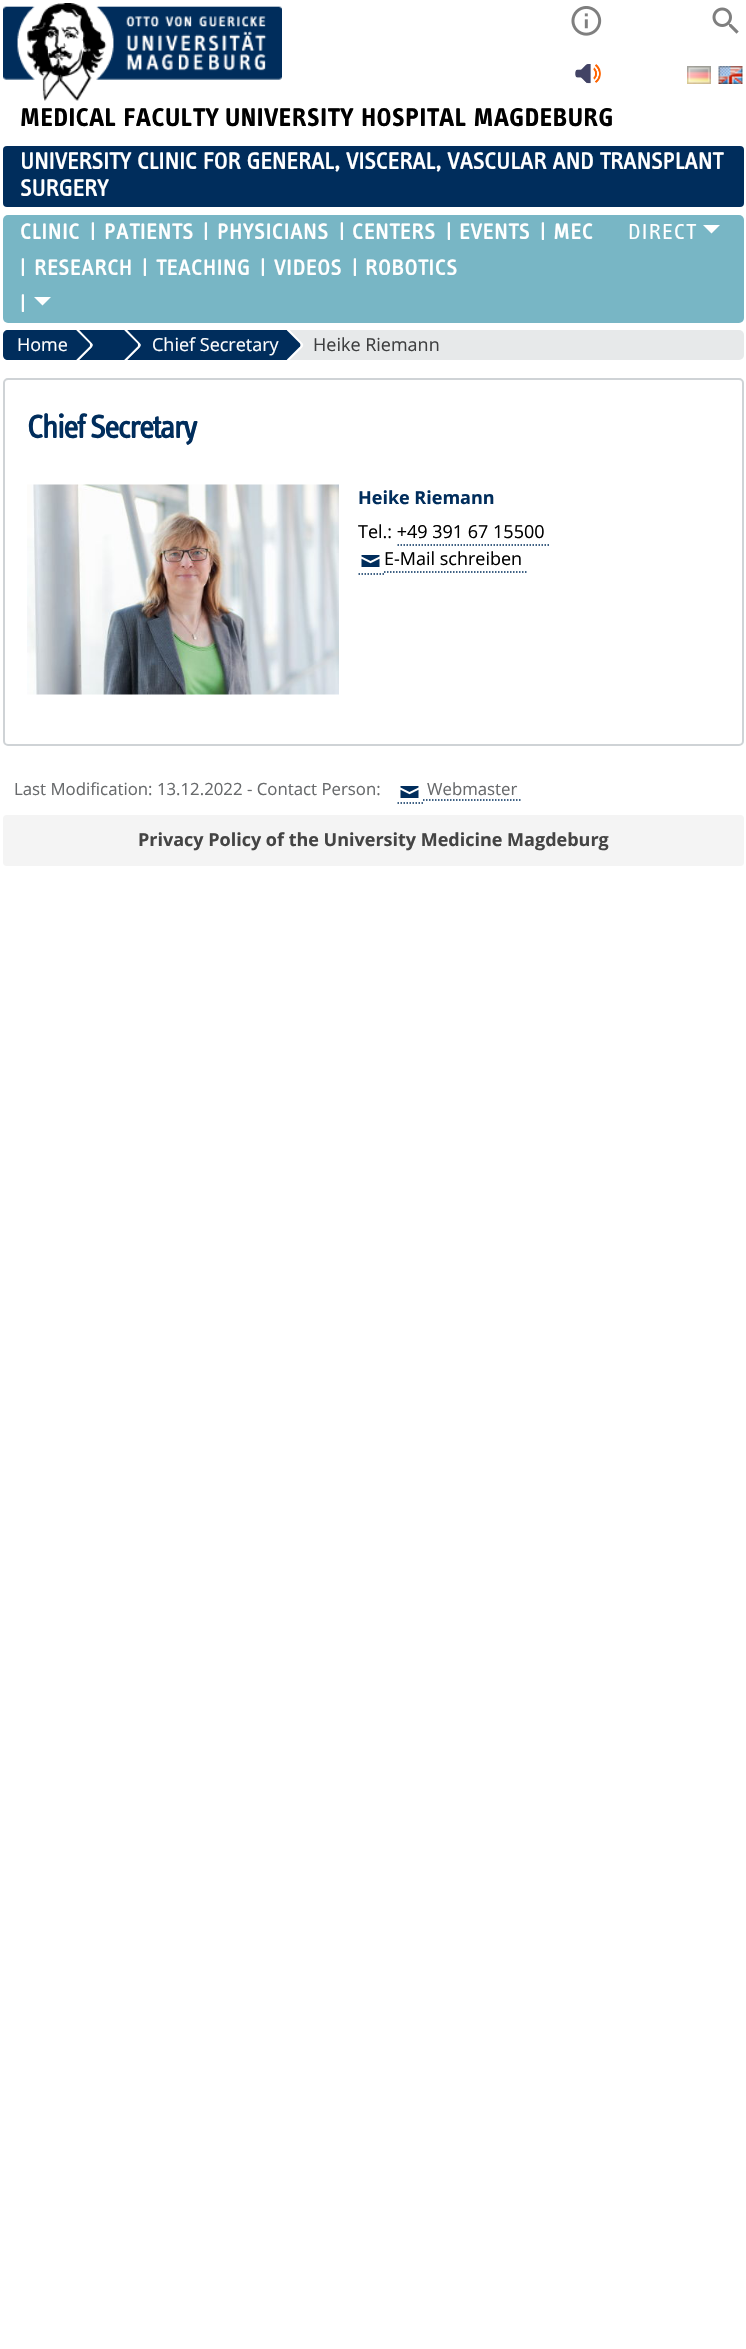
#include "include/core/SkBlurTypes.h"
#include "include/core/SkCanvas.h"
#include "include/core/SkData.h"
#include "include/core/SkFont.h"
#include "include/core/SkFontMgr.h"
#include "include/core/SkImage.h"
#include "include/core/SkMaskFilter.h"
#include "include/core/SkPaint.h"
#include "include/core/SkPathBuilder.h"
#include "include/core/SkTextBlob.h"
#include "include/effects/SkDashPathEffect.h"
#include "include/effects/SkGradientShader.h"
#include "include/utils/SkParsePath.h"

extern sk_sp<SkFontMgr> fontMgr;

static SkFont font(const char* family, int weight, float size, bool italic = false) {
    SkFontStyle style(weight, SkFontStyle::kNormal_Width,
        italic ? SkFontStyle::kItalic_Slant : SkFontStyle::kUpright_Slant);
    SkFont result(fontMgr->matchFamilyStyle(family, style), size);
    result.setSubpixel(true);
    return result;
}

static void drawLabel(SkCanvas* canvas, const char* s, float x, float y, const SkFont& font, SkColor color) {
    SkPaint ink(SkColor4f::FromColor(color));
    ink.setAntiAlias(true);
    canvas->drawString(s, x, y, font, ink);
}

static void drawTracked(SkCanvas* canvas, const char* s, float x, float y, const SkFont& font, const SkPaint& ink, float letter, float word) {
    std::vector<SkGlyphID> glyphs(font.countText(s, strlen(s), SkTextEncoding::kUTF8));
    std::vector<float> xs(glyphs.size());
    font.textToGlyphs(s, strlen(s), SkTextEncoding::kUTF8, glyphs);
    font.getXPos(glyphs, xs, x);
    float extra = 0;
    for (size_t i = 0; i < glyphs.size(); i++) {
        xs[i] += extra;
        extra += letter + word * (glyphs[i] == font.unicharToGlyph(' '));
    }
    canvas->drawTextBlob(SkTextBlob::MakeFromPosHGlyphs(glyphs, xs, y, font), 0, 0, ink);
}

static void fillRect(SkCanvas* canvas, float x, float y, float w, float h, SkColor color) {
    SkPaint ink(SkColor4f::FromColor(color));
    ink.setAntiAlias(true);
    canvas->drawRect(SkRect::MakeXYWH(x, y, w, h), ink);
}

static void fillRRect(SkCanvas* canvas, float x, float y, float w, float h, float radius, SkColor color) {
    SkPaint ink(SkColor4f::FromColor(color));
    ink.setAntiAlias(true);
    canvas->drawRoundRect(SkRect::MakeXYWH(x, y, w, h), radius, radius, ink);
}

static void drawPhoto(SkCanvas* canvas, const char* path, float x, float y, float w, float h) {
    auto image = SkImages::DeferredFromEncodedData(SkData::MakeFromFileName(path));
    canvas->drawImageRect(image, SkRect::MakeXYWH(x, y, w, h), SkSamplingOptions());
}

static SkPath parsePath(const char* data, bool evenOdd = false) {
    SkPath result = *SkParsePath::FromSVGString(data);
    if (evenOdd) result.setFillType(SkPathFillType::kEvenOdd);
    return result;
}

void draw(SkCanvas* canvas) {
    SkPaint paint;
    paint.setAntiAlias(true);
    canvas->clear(0xFFFFFFFF);
    drawPhoto(canvas, "assets/img1.png", 3, 3, 279, 98);
    drawPhoto(canvas, "assets/img2.png", 571, 6, 31, 30);
    drawPhoto(canvas, "assets/img3.png", 712, 7, 27, 27);
    drawPhoto(canvas, "assets/img4.png", 575, 64, 26, 20);
    drawPhoto(canvas, "assets/img5.png", 687, 66, 24, 18);
    drawPhoto(canvas, "assets/img6.png", 718, 66, 25, 18);
    SkFont font1 = font("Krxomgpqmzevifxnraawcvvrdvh", 700, 26.4f);
    paint.setColor(0xFF000000);
    drawTracked(canvas, "MEDICAL FACULTY", 20, 126, font1, paint, 0.5f, 0);
    drawTracked(canvas, "UNIVERSITY HOSPITAL MAGDEBURG", 225, 126, font1, paint, 0.5f, 0);
    fillRRect(canvas, 3, 146, 741, 61, 4, 0xFF002D5C);
    SkFont font2 = font("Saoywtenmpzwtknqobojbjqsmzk", 700, 24);
    drawLabel(canvas, "UNIVERSITY CLINIC FOR GENERAL, VISCERAL, VASCULAR AND TRANSPLANT", 20, 169, font2, 0xFFFFFFFF);
    drawLabel(canvas, "SURGERY", 20, 196, font2, 0xFFFFFFFF);
    fillRRect(canvas, 3, 215, 741, 108, 5, 0xFF78B6C5);
    SkFont font3 = font("Saoywtenmpzwtknqobojbjqsmzk", 700, 22.25f);
    paint.setColor(0xFFFFFFFF);
    drawTracked(canvas, "CLINIC", 20, 239, font3, paint, 0.75f, 0);
    drawTracked(canvas, "|", 90, 239, font3, paint, 0.75f, 0);
    drawTracked(canvas, "PATIENTS", 104, 239, font3, paint, 0.75f, 0);
    drawTracked(canvas, "|", 203, 239, font3, paint, 0.75f, 0);
    drawTracked(canvas, "PHYSICIANS", 217, 239, font3, paint, 0.75f, 0);
    drawTracked(canvas, "|", 339, 239, font3, paint, 0.75f, 0);
    drawTracked(canvas, "CENTERS", 352, 239, font3, paint, 0.75f, 0);
    drawTracked(canvas, "|", 446, 239, font3, paint, 0.75f, 0);
    drawTracked(canvas, "EVENTS", 459, 239, font3, paint, 0.75f, 0);
    drawTracked(canvas, "|", 540, 239, font3, paint, 0.75f, 0);
    drawTracked(canvas, "MEC", 553, 239, font3, paint, 0.75f, 0);
    drawTracked(canvas, "|", 20, 275, font3, paint, 0.75f, 0);
    drawTracked(canvas, "RESEARCH", 34, 275, font3, paint, 0.75f, 0);
    drawTracked(canvas, "|", 142, 275, font3, paint, 0.75f, 0);
    drawTracked(canvas, "TEACHING", 156, 275, font3, paint, 0.75f, 0);
    drawTracked(canvas, "|", 260, 275, font3, paint, 0.75f, 0);
    drawTracked(canvas, "VIDEOS", 274, 275, font3, paint, 0.75f, 0);
    drawTracked(canvas, "|", 352, 275, font3, paint, 0.75f, 0);
    drawTracked(canvas, "ROBOTICS", 365, 275, font3, paint, 0.75f, 0);
    drawTracked(canvas, "|", 20, 311, font3, paint, 1.25f, 0);
    canvas->drawPath(parsePath("M34 297L42.5 305.5L51 297Z"), paint);
    SkFont font4 = font("Saoywtenmpzwtknqobojbjqsmzk", 400, 22.25f);
    drawTracked(canvas, "DIRECT", 628, 239, font4, paint, 1.25f, 0);
    canvas->drawPath(parsePath("M703 225L711.5 233.5L720 225Z"), paint);
    fillRRect(canvas, 3, 330, 741, 30, 5, 0xFFE7E9EA);
    fillRect(canvas, 77, 330, 210, 30, 0xFF002D5C);
    paint.setColor(0xE6FFFFFF);
    canvas->drawPath(parsePath("M125.5 328.5L124 330L137.5 343.5C138 344.5 138 346 137.5 346.5L124 360L125.5 361.5L139.5 347.5C141 346 141 344 139.5 343Z"), paint);
    canvas->drawPath(parsePath("M125.5 328.5L124 330L137.5 343.5C138 344.5 138 346 137.5 346.5L124 360L125.5 361.5L139.5 347.5C141 346 141 344 139.5 343Z"), paint);
    paint.setColor(0xFF002D5C);
    canvas->drawPath(parsePath("M124 330L137.5 343.5C138 344.5 138 346 137.5 346.5L124 360C115.5 352 115.5 338.5 124 330Z"), paint);
    canvas->drawPath(parsePath("M8 330H77V360H8C5 360 3 358 3 355V335C3 332 5 330 8 330Z"), paint);
    SkFont font5 = font("Open Sans", 400, 18);
    drawLabel(canvas, "Home", 17, 351, font5, 0xFFFFFFFF);
    paint.setColor(0xE6FFFFFF);
    canvas->drawPath(parsePath("M77.5 328.5L76 330L89.5 343.5C90 344.5 90 346 89.5 346.5L76 360L77.5 361.5L91.5 347.5C93 346 93 344 91.5 343Z"), paint);
    canvas->drawPath(parsePath("M77.5 328.5L76 330L89.5 343.5C90 344.5 90 346 89.5 346.5L76 360L77.5 361.5L91.5 347.5C93 346 93 344 91.5 343Z"), paint);
    paint.setColor(0xFF002D5C);
    canvas->drawPath(parsePath("M76 330L89.5 343.5C90 344.5 90 346 89.5 346.5L76 360C67.5 352 67.5 338.5 76 330Z"), paint);
    drawLabel(canvas, "Chief Secretary", 152, 351, font5, 0xFFFFFFFF);
    paint.setColor(0xE6FFFFFF);
    canvas->drawPath(parsePath("M288 328.5L286 330.5L286.5 330L300 343.5C300.5 344.5 300.5 346 300 346.5L286.5 360L288 361.5L302 347.5C303.5 346 303.5 344 302 343Z"), paint);
    canvas->drawPath(parsePath("M288 328.5L286 330.5L286.5 330L300 343.5C300.5 344.5 300.5 346 300 346.5L286.5 360L288 361.5L302 347.5C303.5 346 303.5 344 302 343Z"), paint);
    paint.setColor(0xFF002D5C);
    canvas->drawPath(parsePath("M286.5 330L300 343.5C300.5 344.5 300.5 346 300 346.5L286.5 360C278 352 278 338.5 286.5 330Z"), paint);
    drawLabel(canvas, "Heike Riemann", 313, 351, font5, 0xFF3E3F40);
    paint.setStroke(true);
    paint.setStrokeWidth(2);
    paint.setColor(0xFFCFD3D6);
    canvas->drawRoundRect(SkRect::MakeXYWH(4, 379, 739, 366), 4, 4, paint);
    SkFont font6 = font("Saoywtenmpzwtknqobojbjqsmzk", 700, 33.5f);
    paint.setStroke(false);
    paint.setColor(0xFF002D5C);
    drawTracked(canvas, "Chief Secretary", 27, 438, font6, paint, -1.9f, 0);
    drawPhoto(canvas, "assets/img7.png", 27, 484, 312, 211);
    SkFont font7 = font("Open Sans", 700, 18);
    drawLabel(canvas, "Heike Riemann", 358, 504, font7, 0xFF002D5C);
    drawLabel(canvas, "Tel.: +49 391 67 15500", 358, 538, font5, 0xFF000000);
    paint.setStroke(true);
    paint.setStrokeWidth(1.5f);
    paint.setPathEffect(SkDashPathEffect::Make({{1.5f, 1.5f}}, 0));
    canvas->drawPath(parsePath("M397.5 545H549"), paint);
    paint.setPathEffect(nullptr);
    paint.setPathEffect(SkDashPathEffect::Make({{1.5f, 1.5f}}, 0));
    canvas->drawPath(parsePath("M358.5 574H384"), paint);
    paint.setPathEffect(nullptr);
    paint.setPathEffect(SkDashPathEffect::Make({{1.5f, 1.5f}}, 0));
    canvas->drawPath(parsePath("M384 572H526.5"), paint);
    paint.setPathEffect(nullptr);
    drawPhoto(canvas, "assets/img8.png", 361, 555, 19, 12);
    drawLabel(canvas, "E-Mail schreiben", 384, 565, font5, 0xFF000000);
    SkFont font8 = font("Open Sans", 400, 16.8f);
    drawLabel(canvas, "Last Modification: 13.12.2022 - Contact Person:", 14, 795, font8, 0xFF686A6C);
    paint.setPathEffect(SkDashPathEffect::Make({{1.5f, 1.5f}}, 0));
    canvas->drawPath(parsePath("M397.5 803H423"), paint);
    paint.setPathEffect(nullptr);
    paint.setPathEffect(SkDashPathEffect::Make({{1.5f, 1.5f}}, 0));
    canvas->drawPath(parsePath("M423 800H520.5"), paint);
    paint.setPathEffect(nullptr);
    drawPhoto(canvas, "assets/img8.png", 400, 786, 19, 12);
    drawLabel(canvas, "Webmaster", 427, 795, font8, 0xFF686A6C);
    fillRRect(canvas, 3, 815, 741, 51, 4, 0xFFF4F4F4);
    drawLabel(canvas, "Privacy Policy of the University Medicine Magdeburg", 138, 846, font7, 0xFF444444);
}
